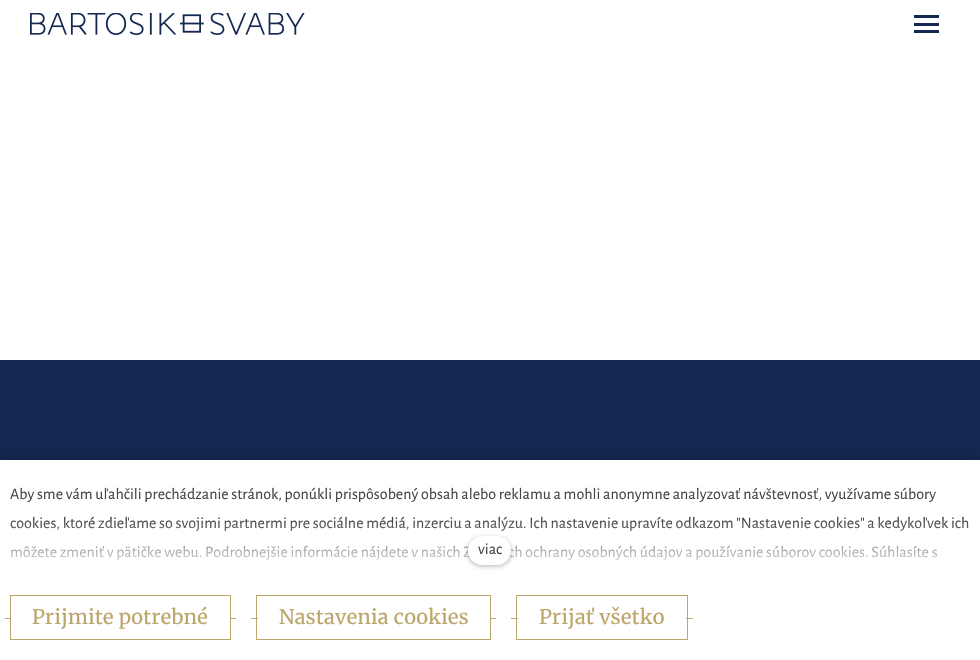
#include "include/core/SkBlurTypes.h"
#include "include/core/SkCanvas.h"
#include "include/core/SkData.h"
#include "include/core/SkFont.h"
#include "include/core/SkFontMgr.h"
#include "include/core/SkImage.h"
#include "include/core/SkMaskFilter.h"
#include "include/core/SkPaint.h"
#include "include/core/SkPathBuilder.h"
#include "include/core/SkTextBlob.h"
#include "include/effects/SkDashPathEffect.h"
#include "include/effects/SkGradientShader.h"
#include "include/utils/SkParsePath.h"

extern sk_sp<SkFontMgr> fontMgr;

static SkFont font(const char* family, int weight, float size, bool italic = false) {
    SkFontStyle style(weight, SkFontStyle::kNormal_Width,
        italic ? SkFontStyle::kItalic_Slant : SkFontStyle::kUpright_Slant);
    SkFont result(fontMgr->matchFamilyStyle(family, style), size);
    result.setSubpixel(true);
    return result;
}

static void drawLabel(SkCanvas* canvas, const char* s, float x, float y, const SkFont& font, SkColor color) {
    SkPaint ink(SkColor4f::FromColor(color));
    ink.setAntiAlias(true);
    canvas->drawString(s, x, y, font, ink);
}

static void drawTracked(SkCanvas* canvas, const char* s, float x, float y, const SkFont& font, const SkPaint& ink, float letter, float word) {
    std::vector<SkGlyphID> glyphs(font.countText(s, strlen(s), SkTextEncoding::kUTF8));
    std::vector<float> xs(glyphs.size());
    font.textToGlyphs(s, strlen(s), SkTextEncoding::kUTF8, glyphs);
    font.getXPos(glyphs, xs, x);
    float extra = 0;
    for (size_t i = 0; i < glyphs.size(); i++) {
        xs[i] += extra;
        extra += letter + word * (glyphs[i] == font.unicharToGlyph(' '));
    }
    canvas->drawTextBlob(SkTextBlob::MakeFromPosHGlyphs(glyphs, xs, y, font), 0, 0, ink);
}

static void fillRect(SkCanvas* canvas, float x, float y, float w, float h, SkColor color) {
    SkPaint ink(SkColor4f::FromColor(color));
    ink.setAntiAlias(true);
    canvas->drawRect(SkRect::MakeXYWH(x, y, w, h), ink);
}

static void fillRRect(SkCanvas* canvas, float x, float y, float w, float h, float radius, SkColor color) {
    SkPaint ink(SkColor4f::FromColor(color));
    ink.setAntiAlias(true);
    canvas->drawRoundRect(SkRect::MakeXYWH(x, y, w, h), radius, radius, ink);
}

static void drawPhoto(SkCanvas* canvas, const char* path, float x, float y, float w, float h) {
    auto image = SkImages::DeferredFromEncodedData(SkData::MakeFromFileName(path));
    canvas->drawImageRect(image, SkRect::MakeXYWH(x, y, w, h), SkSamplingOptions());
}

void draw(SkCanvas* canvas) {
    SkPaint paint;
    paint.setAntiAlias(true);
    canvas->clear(0xFFFFFFFF);
    drawPhoto(canvas, "assets/img1.png", 30, 13, 275, 22);
    fillRect(canvas, 914, 15, 25, 3, 0xFF142851);
    fillRect(canvas, 914, 23, 25, 3, 0xFF142851);
    fillRect(canvas, 914, 30, 25, 3, 0xFF142851);
    fillRect(canvas, 0, 360, 980, 100, 0xFF142851);
    paint.setColor(0x40000000);
    paint.setMaskFilter(SkMaskFilter::MakeBlur(kNormal_SkBlurStyle, 7.5f));
    canvas->drawRect(SkRect::MakeXYWH(0, 460, 980, 200), paint);
    paint.setMaskFilter(nullptr);
    fillRect(canvas, 0, 460, 980, 200, 0xFFFFFFFF);
    SkFont font1 = font("Alegreya Sans", 400, 16);
    drawLabel(canvas, "Aby sme vám uľahčili prechádzanie stránok, ponúkli prispôsobený obsah alebo reklamu a mohli anonymne analyzovať návštevnosť, využívame súbory", 10, 499, font1, 0xFF444444);
    drawLabel(canvas, "cookies, ktoré zdieľame so svojimi partnermi pre sociálne médiá, inzerciu a analýzu. Ich nastavenie upravíte odkazom \"Nastavenie cookies\" a kedykoľvek ich", 10, 528, font1, 0xFF444444);
    drawLabel(canvas, "môžete zmeniť v pätičke webu. Podrobnejšie informácie nájdete v našich Z", 10, 557, font1, 0xFF444444);
    drawLabel(canvas, "ch ochrany osobných údajov a používanie súborov cookies. Súhlasíte s", 508, 557, font1, 0xFF444444);
    {
        const SkColor colors[] = {0xFFFFFFFF, 0x00FFFFFF};
        const float stops[] = {0, 1};
        const SkPoint ends[] = {{490, 575}, {490, 520}};
        paint.setShader(SkGradientShader::MakeLinear(ends, colors, stops, 2, SkTileMode::kClamp));
        paint.setAlpha(255);
    }
    canvas->drawRect(SkRect::MakeXYWH(10, 521, 959, 39), paint);
    paint.setShader(nullptr);
    paint.setColor(0x4D000000);
    paint.setMaskFilter(SkMaskFilter::MakeBlur(kNormal_SkBlurStyle, 2.5f));
    canvas->drawRoundRect(SkRect::MakeXYWH(468, 538, 43, 28), 14, 14, paint);
    paint.setMaskFilter(nullptr);
    fillRRect(canvas, 468, 536, 43, 29, 14.5f, 0xFFFFFFFF);
    drawLabel(canvas, "viac", 478, 554, font1, 0xFF444444);
    paint.setStroke(true);
    paint.setStrokeWidth(1);
    paint.setColor(0xFFBCA66B);
    canvas->drawRect(SkRect::MakeXYWH(10.5f, 595.5f, 220, 44), paint);
    fillRect(canvas, 5, 618, 6, 1, 0xFFBCA66B);
    SkFont font2 = font("Merriweather", 400, 20);
    paint.setStroke(false);
    drawTracked(canvas, "Prijmite potrebné", 32, 624, font2, paint, 0.3f, 0);
    fillRect(canvas, 230, 618, 6, 1, 0xFFBCA66B);
    paint.setStroke(true);
    canvas->drawRect(SkRect::MakeXYWH(256.5f, 595.5f, 234, 44), paint);
    fillRect(canvas, 251, 618, 7, 1, 0xFFBCA66B);
    paint.setStroke(false);
    drawTracked(canvas, "Nastavenia cookies", 279, 624, font2, paint, 0.3f, 0);
    fillRect(canvas, 490, 618, 6, 1, 0xFFBCA66B);
    paint.setStroke(true);
    canvas->drawRect(SkRect::MakeXYWH(516.5f, 595.5f, 171, 44), paint);
    fillRect(canvas, 511, 618, 7, 1, 0xFFBCA66B);
    paint.setStroke(false);
    drawTracked(canvas, "Prijať všetko", 539, 624, font2, paint, 0.3f, 0);
    fillRect(canvas, 686, 618, 7, 1, 0xFFBCA66B);
}
